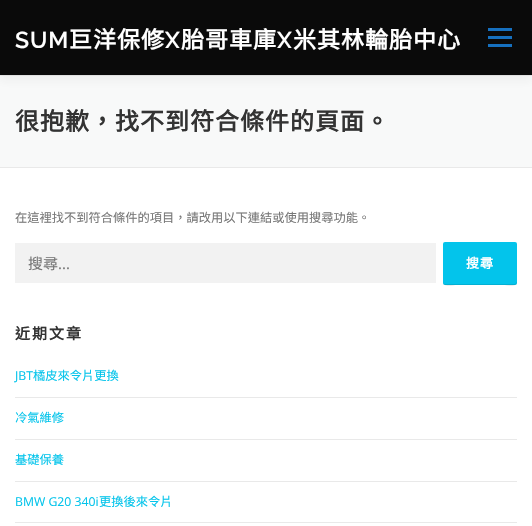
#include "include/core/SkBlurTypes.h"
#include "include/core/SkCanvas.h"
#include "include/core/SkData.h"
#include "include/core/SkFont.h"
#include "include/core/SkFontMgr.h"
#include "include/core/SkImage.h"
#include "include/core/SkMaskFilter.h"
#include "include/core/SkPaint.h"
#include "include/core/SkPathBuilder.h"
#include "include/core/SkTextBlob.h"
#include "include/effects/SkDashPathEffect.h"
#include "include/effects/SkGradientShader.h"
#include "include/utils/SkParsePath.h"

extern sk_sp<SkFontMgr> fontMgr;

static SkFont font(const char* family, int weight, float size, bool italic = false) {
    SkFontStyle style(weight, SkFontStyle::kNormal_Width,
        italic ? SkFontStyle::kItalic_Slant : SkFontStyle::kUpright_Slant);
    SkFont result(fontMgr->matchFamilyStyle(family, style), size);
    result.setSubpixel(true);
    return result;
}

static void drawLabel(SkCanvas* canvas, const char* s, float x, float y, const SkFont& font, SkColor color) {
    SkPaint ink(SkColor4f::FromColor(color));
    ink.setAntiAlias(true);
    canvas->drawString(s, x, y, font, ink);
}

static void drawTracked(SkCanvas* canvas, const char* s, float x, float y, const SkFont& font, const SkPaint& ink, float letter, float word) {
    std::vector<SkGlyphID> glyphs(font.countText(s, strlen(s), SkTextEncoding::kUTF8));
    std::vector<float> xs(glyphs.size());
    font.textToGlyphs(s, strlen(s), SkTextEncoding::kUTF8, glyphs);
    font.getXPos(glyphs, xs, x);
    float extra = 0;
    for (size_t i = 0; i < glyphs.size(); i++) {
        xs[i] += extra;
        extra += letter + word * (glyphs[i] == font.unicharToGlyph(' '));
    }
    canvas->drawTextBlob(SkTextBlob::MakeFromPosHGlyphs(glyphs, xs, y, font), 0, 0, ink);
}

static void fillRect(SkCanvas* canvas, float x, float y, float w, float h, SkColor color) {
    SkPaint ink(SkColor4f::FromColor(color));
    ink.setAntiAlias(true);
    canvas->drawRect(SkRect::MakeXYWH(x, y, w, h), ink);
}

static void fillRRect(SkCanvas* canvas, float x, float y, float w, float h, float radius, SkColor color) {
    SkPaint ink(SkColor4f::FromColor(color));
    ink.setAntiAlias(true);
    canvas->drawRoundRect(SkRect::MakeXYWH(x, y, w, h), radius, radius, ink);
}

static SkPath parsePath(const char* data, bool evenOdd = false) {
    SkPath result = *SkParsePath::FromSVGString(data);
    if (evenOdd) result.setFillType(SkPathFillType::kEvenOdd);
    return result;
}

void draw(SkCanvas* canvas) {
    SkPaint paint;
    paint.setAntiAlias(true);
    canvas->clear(0xFFFFFFFF);
    fillRect(canvas, 0, 76, 532, 91, 0xFFF8F9F9);
    fillRect(canvas, 0, 75, 532, 1, 0xFFE9E9E9);
    paint.setColor(0x0F323232);
    paint.setMaskFilter(SkMaskFilter::MakeBlur(kNormal_SkBlurStyle, 5));
    canvas->drawRect(SkRect::MakeXYWH(0, 5, 532, 75), paint);
    paint.setMaskFilter(nullptr);
    fillRect(canvas, 0, 0, 532, 75, 0xFF0A0A0A);
    SkFont font1 = font("Raleway", 600, 23);
    paint.setColor(0xFFFFFFFF);
    drawTracked(canvas, "SUM", 15, 48, font1, paint, 1, 0);
    SkFont font2 = font("Noto Sans CJK TC", 700, 23);
    drawTracked(canvas, "巨洋保修", 69, 48, font2, paint, 1, 0);
    drawTracked(canvas, "X", 165, 48, font1, paint, 1, 0);
    drawTracked(canvas, "胎哥車庫", 181, 48, font2, paint, 1, 0);
    drawTracked(canvas, "X", 277, 48, font1, paint, 1, 0);
    drawTracked(canvas, "米其林輪胎中心", 293, 48, font2, paint, 1, 0);
    fillRect(canvas, 488, 36, 24, 3, 0xFF1670BF);
    fillRect(canvas, 488, 28, 24, 3, 0xFF1670BF);
    fillRect(canvas, 488, 44, 24, 3, 0xFF1670BF);
    fillRect(canvas, 0, 167, 532, 1, 0xFFE9E9E9);
    SkFont font3 = font("Noto Sans CJK TC", 700, 24);
    paint.setColor(0xFF333333);
    drawTracked(canvas, "很抱歉，找不到符合條件的頁面。", 15, 130, font3, paint, 1, 0);
    SkFont font4 = font("Noto Sans CJK TC", 400, 12.25f);
    drawLabel(canvas, "在這裡找不到符合條件的項目，請改用以下連結或使用搜尋功能。", 15, 222, font4, 0xFF777777);
    fillRect(canvas, 15, 243, 421, 40, 0xFFF2F2F2);
    SkFont font5 = font("Noto Sans CJK TC", 400, 15);
    drawLabel(canvas, "搜尋", 28, 269, font5, 0xFF777777);
    SkFont font6 = font("Open Sans", 400, 15);
    drawLabel(canvas, "...", 58, 269, font6, 0xFF777777);
    fillRRect(canvas, 443, 242, 74, 43, 2, 0xFF03C4EB);
    paint.setColor(0x1A000000);
    canvas->drawPath(parsePath("M443 282C443 288 453 285 457 285H503C507 285 517 288 517 282L516 283L515 284H445C444 284 443 283 443 282Z"), paint);
    SkFont font7 = font("Noto Sans CJK TC", 700, 13);
    paint.setColor(0xFFFFFFFF);
    drawTracked(canvas, "搜尋", 466, 268, font7, paint, 1, 0);
    SkFont font8 = font("Noto Sans CJK TC", 700, 15);
    paint.setColor(0xFF333333);
    drawTracked(canvas, "近期文章", 15, 339, font8, paint, 2, 0);
    fillRect(canvas, 15, 397, 502, 1, 0xFFE9E9E9);
    SkFont font9 = font("Open Sans", 400, 12.25f);
    drawLabel(canvas, "JBT", 15, 380, font9, 0xFF03C4EB);
    drawLabel(canvas, "橘皮來令片更換", 33, 380, font4, 0xFF03C4EB);
    fillRect(canvas, 15, 439, 502, 1, 0xFFE9E9E9);
    drawLabel(canvas, "冷氣維修", 15, 422, font4, 0xFF03C4EB);
    fillRect(canvas, 15, 481, 502, 1, 0xFFE9E9E9);
    drawLabel(canvas, "基礎保養", 15, 464, font4, 0xFF03C4EB);
    fillRect(canvas, 15, 522, 502, 1, 0xFFE9E9E9);
    drawLabel(canvas, "BMW G20 340i", 15, 506, font9, 0xFF03C4EB);
    drawLabel(canvas, "更換後來令片", 99, 506, font4, 0xFF03C4EB);
}
